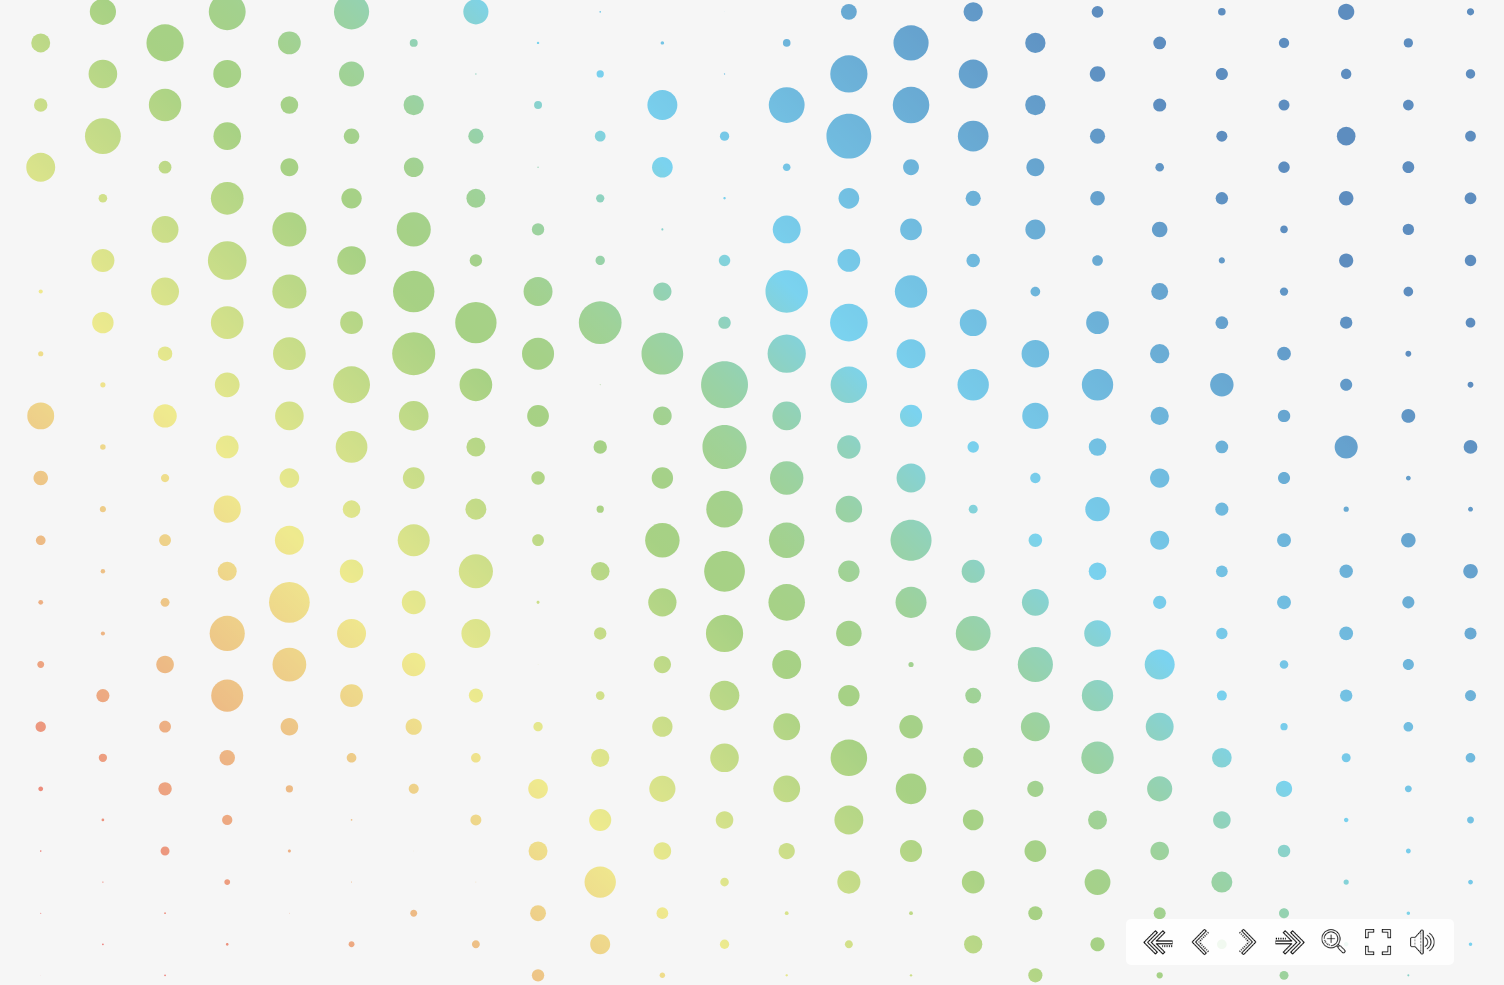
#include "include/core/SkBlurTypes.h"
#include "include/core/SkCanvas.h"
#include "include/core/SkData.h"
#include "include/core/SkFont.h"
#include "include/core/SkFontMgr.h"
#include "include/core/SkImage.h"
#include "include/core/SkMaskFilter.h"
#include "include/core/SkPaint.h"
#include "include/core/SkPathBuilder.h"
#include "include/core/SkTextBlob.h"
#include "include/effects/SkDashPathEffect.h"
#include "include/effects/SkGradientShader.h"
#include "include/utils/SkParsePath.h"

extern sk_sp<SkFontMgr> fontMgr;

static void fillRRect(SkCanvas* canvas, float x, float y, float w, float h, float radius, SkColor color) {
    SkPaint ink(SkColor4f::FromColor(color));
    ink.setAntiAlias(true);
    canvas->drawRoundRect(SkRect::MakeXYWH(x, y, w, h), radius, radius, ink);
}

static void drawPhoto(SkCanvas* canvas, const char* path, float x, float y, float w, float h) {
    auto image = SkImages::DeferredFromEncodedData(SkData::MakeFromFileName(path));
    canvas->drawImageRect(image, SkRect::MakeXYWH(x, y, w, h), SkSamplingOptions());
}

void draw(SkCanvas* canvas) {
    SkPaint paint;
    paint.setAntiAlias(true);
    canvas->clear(0xFFE8E8E8);
    drawPhoto(canvas, "assets/img1.png", 0, 0, 1504, 985);
    fillRRect(canvas, 1126, 919, 328, 46, 5, 0xD9FFFFFF);
    drawPhoto(canvas, "assets/img2.png", 1143, 930, 30, 25);
    drawPhoto(canvas, "assets/img3.png", 1191, 929, 18, 27);
    drawPhoto(canvas, "assets/img4.png", 1239, 928, 18, 27);
    drawPhoto(canvas, "assets/img5.png", 1275, 930, 30, 25);
    drawPhoto(canvas, "assets/img6.png", 1321, 929, 25, 25);
    drawPhoto(canvas, "assets/img7.png", 1365, 929, 27, 27);
    drawPhoto(canvas, "assets/img8.png", 1410, 929, 25, 26);
}
